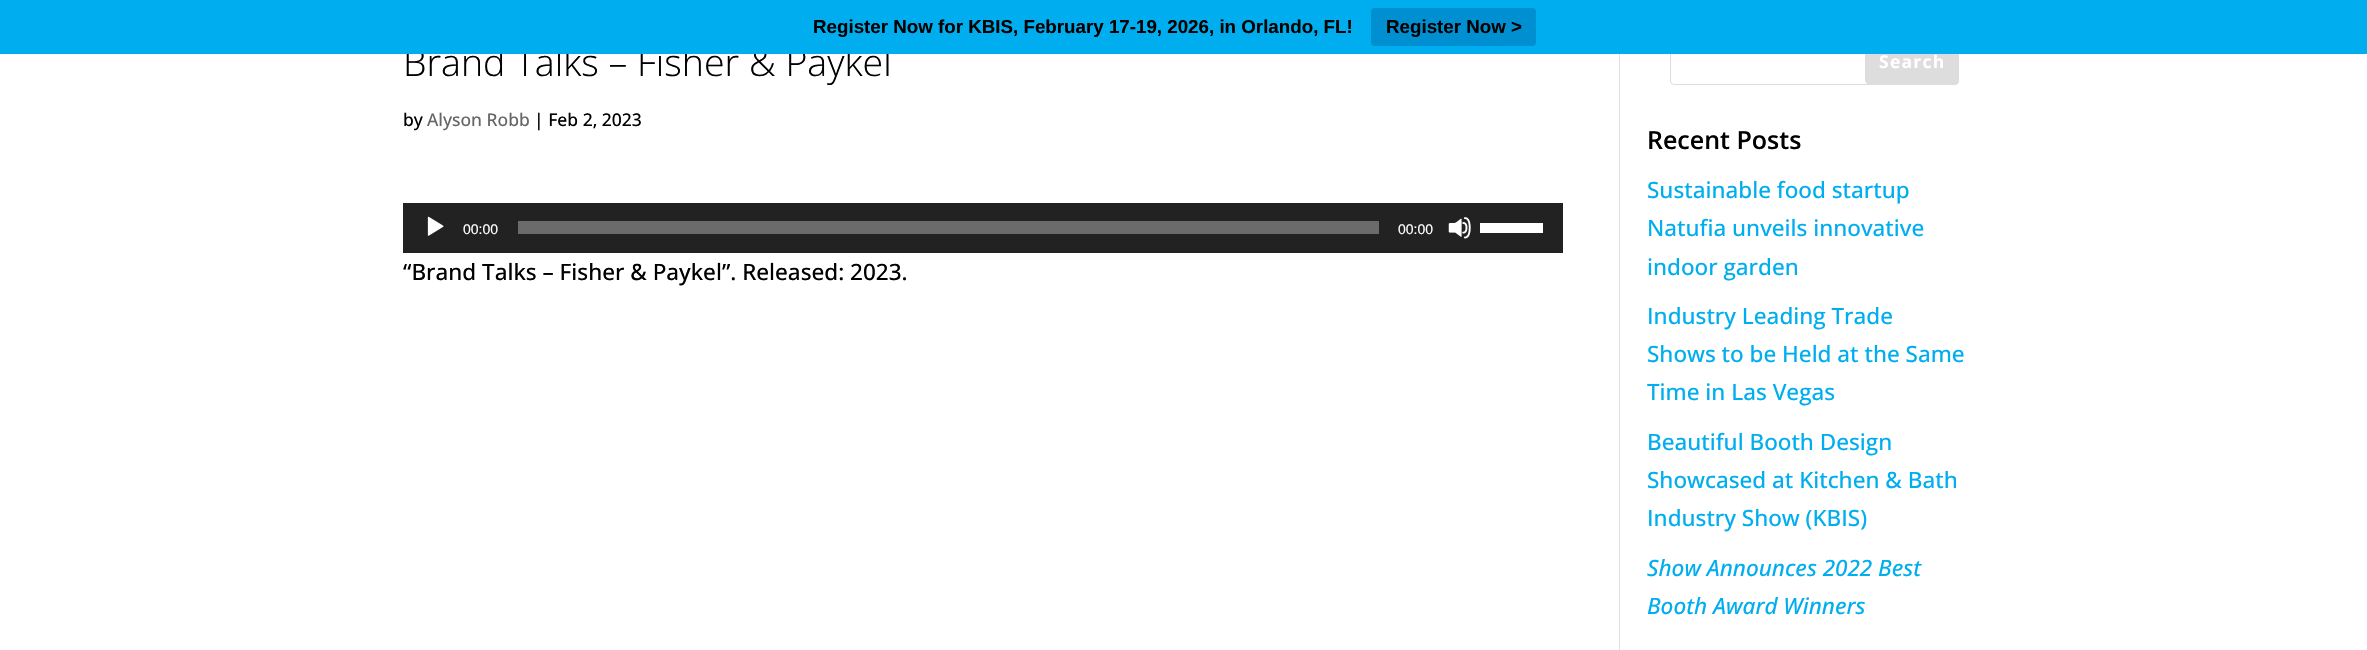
#include "include/core/SkBlurTypes.h"
#include "include/core/SkCanvas.h"
#include "include/core/SkData.h"
#include "include/core/SkFont.h"
#include "include/core/SkFontMgr.h"
#include "include/core/SkImage.h"
#include "include/core/SkMaskFilter.h"
#include "include/core/SkPaint.h"
#include "include/core/SkPathBuilder.h"
#include "include/core/SkTextBlob.h"
#include "include/effects/SkDashPathEffect.h"
#include "include/effects/SkGradientShader.h"
#include "include/utils/SkParsePath.h"

extern sk_sp<SkFontMgr> fontMgr;

static SkFont font(const char* family, int weight, float size, bool italic = false) {
    SkFontStyle style(weight, SkFontStyle::kNormal_Width,
        italic ? SkFontStyle::kItalic_Slant : SkFontStyle::kUpright_Slant);
    SkFont result(fontMgr->matchFamilyStyle(family, style), size);
    result.setSubpixel(true);
    return result;
}

static void drawLabel(SkCanvas* canvas, const char* s, float x, float y, const SkFont& font, SkColor color) {
    SkPaint ink(SkColor4f::FromColor(color));
    ink.setAntiAlias(true);
    canvas->drawString(s, x, y, font, ink);
}

static void drawTracked(SkCanvas* canvas, const char* s, float x, float y, const SkFont& font, const SkPaint& ink, float letter, float word) {
    std::vector<SkGlyphID> glyphs(font.countText(s, strlen(s), SkTextEncoding::kUTF8));
    std::vector<float> xs(glyphs.size());
    font.textToGlyphs(s, strlen(s), SkTextEncoding::kUTF8, glyphs);
    font.getXPos(glyphs, xs, x);
    float extra = 0;
    for (size_t i = 0; i < glyphs.size(); i++) {
        xs[i] += extra;
        extra += letter + word * (glyphs[i] == font.unicharToGlyph(' '));
    }
    canvas->drawTextBlob(SkTextBlob::MakeFromPosHGlyphs(glyphs, xs, y, font), 0, 0, ink);
}

static void fillRect(SkCanvas* canvas, float x, float y, float w, float h, SkColor color) {
    SkPaint ink(SkColor4f::FromColor(color));
    ink.setAntiAlias(true);
    canvas->drawRect(SkRect::MakeXYWH(x, y, w, h), ink);
}

static void fillRRect(SkCanvas* canvas, float x, float y, float w, float h, float radius, SkColor color) {
    SkPaint ink(SkColor4f::FromColor(color));
    ink.setAntiAlias(true);
    canvas->drawRoundRect(SkRect::MakeXYWH(x, y, w, h), radius, radius, ink);
}

static void drawPhoto(SkCanvas* canvas, const char* path, float x, float y, float w, float h) {
    auto image = SkImages::DeferredFromEncodedData(SkData::MakeFromFileName(path));
    canvas->drawImageRect(image, SkRect::MakeXYWH(x, y, w, h), SkSamplingOptions());
}

static SkPath parsePath(const char* data, bool evenOdd = false) {
    SkPath result = *SkParsePath::FromSVGString(data);
    if (evenOdd) result.setFillType(SkPathFillType::kEvenOdd);
    return result;
}

void draw(SkCanvas* canvas) {
    SkPaint paint;
    paint.setAntiAlias(true);
    canvas->clear(0xFFFFFFFF);
    SkFont font1 = font("Open Sans", 300, 37.5f);
    drawLabel(canvas, "Brand Talks – Fisher & Paykel", 403, 76, font1, 0xFF000000);
    paint.setStroke(true);
    paint.setStrokeWidth(1);
    paint.setColor(0xFFDDDDDD);
    canvas->drawRoundRect(SkRect::MakeXYWH(1670.5f, 35.5f, 288, 49), 3.5f, 3.5f, paint);
    paint.setStroke(false);
    canvas->drawPath(parsePath("M1870 35.5H1955C1957 35.5 1958.5 37 1958.5 39V81C1958.5 83 1957 84.5 1955 84.5H1870C1867.5 84.5 1865.5 82.5 1865.5 80V40C1865.5 37.5 1867.5 35.5 1870 35.5Z"), paint);
    paint.setStroke(true);
    canvas->drawPath(parsePath("M1870 35.5H1955C1957 35.5 1958.5 37 1958.5 39V81C1958.5 83 1957 84.5 1955 84.5H1870C1867.5 84.5 1865.5 82.5 1865.5 80V40C1865.5 37.5 1867.5 35.5 1870 35.5Z"), paint);
    fillRect(canvas, 0, 0, 2367, 54, 0xFF00AEEF);
    SkFont font2 = font("Liberation Sans", 700, 18.75f);
    drawLabel(canvas, "Register Now for KBIS, February 17-19, 2026, in Orlando, FL!", 813, 33, font2, 0xFF000000);
    fillRRect(canvas, 1371, 8, 165, 38, 4, 0xFF008FD0);
    drawLabel(canvas, "Register Now >", 1386, 33, font2, 0xFF000000);
    SkFont font3 = font("Open Sans", 500, 17.5f);
    drawLabel(canvas, "by", 403, 126, font3, 0xFF000000);
    drawLabel(canvas, "Alyson Robb", 427, 126, font3, 0xFF666666);
    drawLabel(canvas, "| Feb 2, 2023", 534, 126, font3, 0xFF000000);
    fillRect(canvas, 403, 203, 1160, 50, 0xFF222222);
    drawPhoto(canvas, "assets/img1.png", 427, 216, 17, 20);
    SkFont font4 = font("Liberation Sans", 400, 14);
    drawLabel(canvas, "00:00", 463, 234, font4, 0xFFFFFFFF);
    fillRect(canvas, 518, 221, 861, 13, 0xFF6B6B6B);
    drawLabel(canvas, "00:00", 1398, 234, font4, 0xFFFFFFFF);
    drawPhoto(canvas, "assets/img2.png", 1448, 217, 23, 22);
    fillRect(canvas, 1480, 223, 63, 10, 0xFFFFFFFF);
    SkFont font5 = font("Open Sans", 500, 22.5f);
    drawLabel(canvas, "“Brand Talks – Fisher & Paykel”. Released: 2023.", 403, 280, font5, 0xFF000000);
    SkFont font6 = font("Open Sans", 700, 17.5f);
    paint.setStroke(false);
    paint.setColor(0xFFFFFFFF);
    drawTracked(canvas, "Search", 1879, 68, font6, paint, 1.25f, 0);
    SkFont font7 = font("Open Sans", 600, 25);
    drawLabel(canvas, "Recent Posts", 1647, 149, font7, 0xFF000000);
    drawLabel(canvas, "Sustainable food startup", 1647, 198, font5, 0xFF00AEEF);
    drawLabel(canvas, "Natufia unveils innovative", 1647, 236, font5, 0xFF00AEEF);
    drawLabel(canvas, "indoor garden", 1647, 275, font5, 0xFF00AEEF);
    drawLabel(canvas, "Industry Leading Trade", 1647, 324, font5, 0xFF00AEEF);
    drawLabel(canvas, "Shows to be Held at the Same", 1647, 362, font5, 0xFF00AEEF);
    drawLabel(canvas, "Time in Las Vegas", 1647, 400, font5, 0xFF00AEEF);
    drawLabel(canvas, "Beautiful Booth Design", 1647, 450, font5, 0xFF00AEEF);
    drawLabel(canvas, "Showcased at Kitchen & Bath", 1647, 488, font5, 0xFF00AEEF);
    drawLabel(canvas, "Industry Show (KBIS)", 1647, 526, font5, 0xFF00AEEF);
    SkFont font8 = font("Open Sans", 500, 22.5f, true);
    drawLabel(canvas, "Show Announces 2022 Best", 1647, 576, font8, 0xFF00AEEF);
    drawLabel(canvas, "Booth Award Winners", 1647, 614, font8, 0xFF00AEEF);
    fillRect(canvas, 1619, 54, 1, 596, 0xFFE2E2E2);
}
